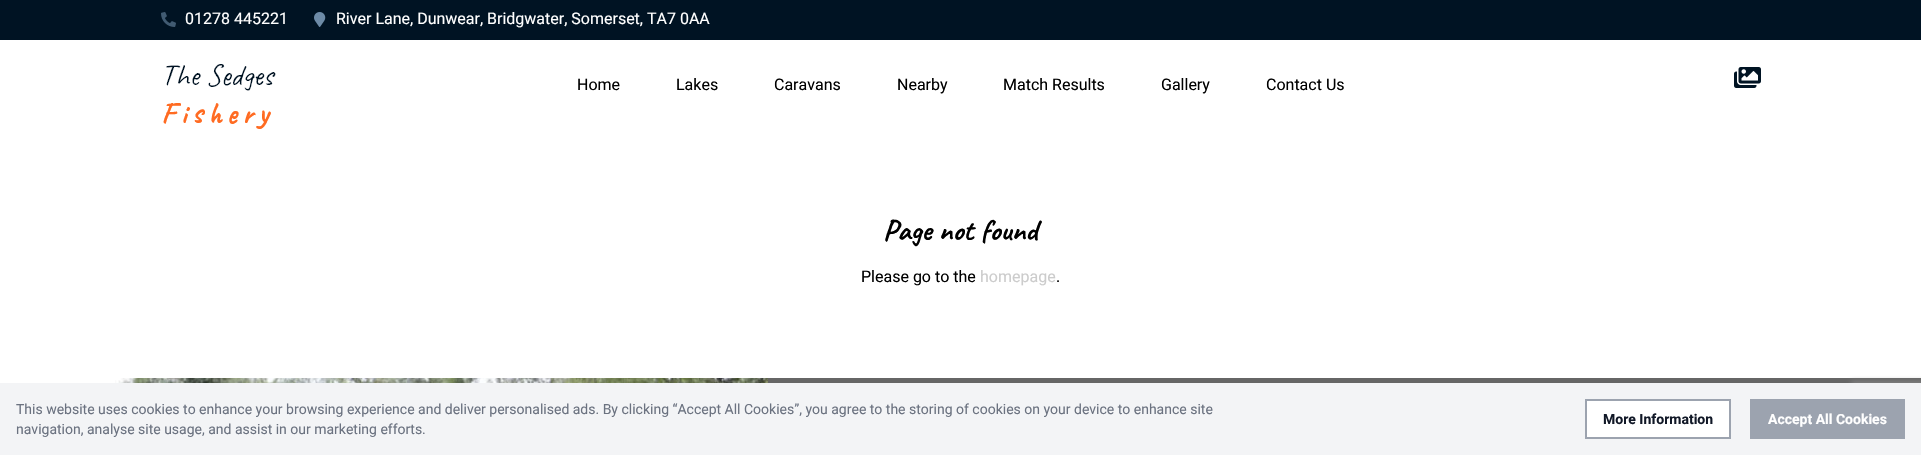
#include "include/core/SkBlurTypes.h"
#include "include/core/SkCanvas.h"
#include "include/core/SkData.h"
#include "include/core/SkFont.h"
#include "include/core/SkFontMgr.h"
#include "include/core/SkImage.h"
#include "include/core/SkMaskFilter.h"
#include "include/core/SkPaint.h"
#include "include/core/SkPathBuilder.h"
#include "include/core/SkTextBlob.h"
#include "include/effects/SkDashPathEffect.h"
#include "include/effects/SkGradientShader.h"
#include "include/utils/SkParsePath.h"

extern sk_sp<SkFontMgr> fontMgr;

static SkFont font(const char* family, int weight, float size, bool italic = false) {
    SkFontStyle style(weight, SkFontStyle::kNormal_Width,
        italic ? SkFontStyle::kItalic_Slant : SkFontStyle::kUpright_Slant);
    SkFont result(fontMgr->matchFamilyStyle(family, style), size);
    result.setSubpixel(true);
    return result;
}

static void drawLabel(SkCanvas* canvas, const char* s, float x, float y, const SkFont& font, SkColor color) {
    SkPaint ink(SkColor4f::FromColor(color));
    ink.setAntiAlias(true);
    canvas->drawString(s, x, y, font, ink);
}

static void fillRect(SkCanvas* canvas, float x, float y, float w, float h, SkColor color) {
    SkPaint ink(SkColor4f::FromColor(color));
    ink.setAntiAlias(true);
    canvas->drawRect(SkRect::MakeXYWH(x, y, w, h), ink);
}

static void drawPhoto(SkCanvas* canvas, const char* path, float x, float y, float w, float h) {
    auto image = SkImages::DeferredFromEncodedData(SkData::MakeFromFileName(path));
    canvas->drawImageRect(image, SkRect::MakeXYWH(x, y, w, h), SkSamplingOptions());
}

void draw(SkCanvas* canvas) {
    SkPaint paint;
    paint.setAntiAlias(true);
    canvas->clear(0xFFFFFFFF);
    fillRect(canvas, 0, 0, 1921, 40, 0xFF001323);
    drawPhoto(canvas, "assets/img1.png", 161, 12, 15, 15);
    SkFont font1 = font("Roboto", 400, 16);
    drawLabel(canvas, "01278 445221", 185, 24, font1, 0xFFFFFFFF);
    drawPhoto(canvas, "assets/img2.png", 314, 12, 12, 15);
    drawLabel(canvas, "River Lane, Dunwear, Bridgwater, Somerset, TA7 0AA", 336, 24, font1, 0xFFFFFFFF);
    drawPhoto(canvas, "assets/img3.png", 163, 64, 113, 65);
    drawLabel(canvas, "Home", 577, 90, font1, 0xFF000000);
    drawLabel(canvas, "Lakes", 676, 90, font1, 0xFF000000);
    drawLabel(canvas, "Caravans", 774, 90, font1, 0xFF000000);
    drawLabel(canvas, "Nearby", 897, 90, font1, 0xFF000000);
    drawLabel(canvas, "Match Results", 1003, 90, font1, 0xFF000000);
    drawLabel(canvas, "Gallery", 1161, 90, font1, 0xFF000000);
    drawLabel(canvas, "Contact Us", 1266, 90, font1, 0xFF000000);
    drawPhoto(canvas, "assets/img4.png", 1734, 67, 27, 21);
    SkFont font2 = font("Caveat", 700, 30);
    drawLabel(canvas, "Page not found", 883, 240, font2, 0xFF000000);
    drawLabel(canvas, "Please go to the", 861, 282, font1, 0xFF000000);
    drawLabel(canvas, "homepage", 980, 282, font1, 0xFFCCCCCC);
    drawLabel(canvas, ".", 1056, 282, font1, 0xFF000000);
    fillRect(canvas, 768, 378, 1153, 5, 0xFF666666);
    drawPhoto(canvas, "assets/img5.png", 0, 378, 768, 5);
    paint.setColor(0xFF808080);
    paint.setMaskFilter(SkMaskFilter::MakeBlur(kNormal_SkBlurStyle, 2.5f));
    canvas->drawRoundRect(SkRect::MakeXYWH(1851, 381, 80, 60), 2, 2, paint);
    paint.setMaskFilter(nullptr);
    fillRect(canvas, 0, 383, 1921, 72, 0xFFF3F4F6);
    SkFont font3 = font("Roboto", 400, 14);
    drawLabel(canvas, "This website uses cookies to enhance your browsing experience and deliver personalised ads. By clicking “Accept All Cookies”, you agree to the storing of cookies on your device to enhance site", 16, 414, font3, 0xFF6B7280);
    drawLabel(canvas, "navigation, analyse site usage, and assist in our marketing efforts.", 16, 434, font3, 0xFF6B7280);
    paint.setColor(0xFFFFFFFF);
    canvas->drawRect(SkRect::MakeXYWH(1586, 400, 144, 38), paint);
    paint.setStroke(true);
    paint.setStrokeWidth(2);
    paint.setColor(0xFF9CA3AF);
    canvas->drawRect(SkRect::MakeXYWH(1586, 400, 144, 38), paint);
    SkFont font4 = font("Roboto", 700, 14);
    drawLabel(canvas, "More Information", 1603, 424, font4, 0xFF111827);
    fillRect(canvas, 1750, 399, 155, 40, 0xFF9CA3AF);
    drawLabel(canvas, "Accept All Cookies", 1768, 424, font4, 0xFFFFFFFF);
}
